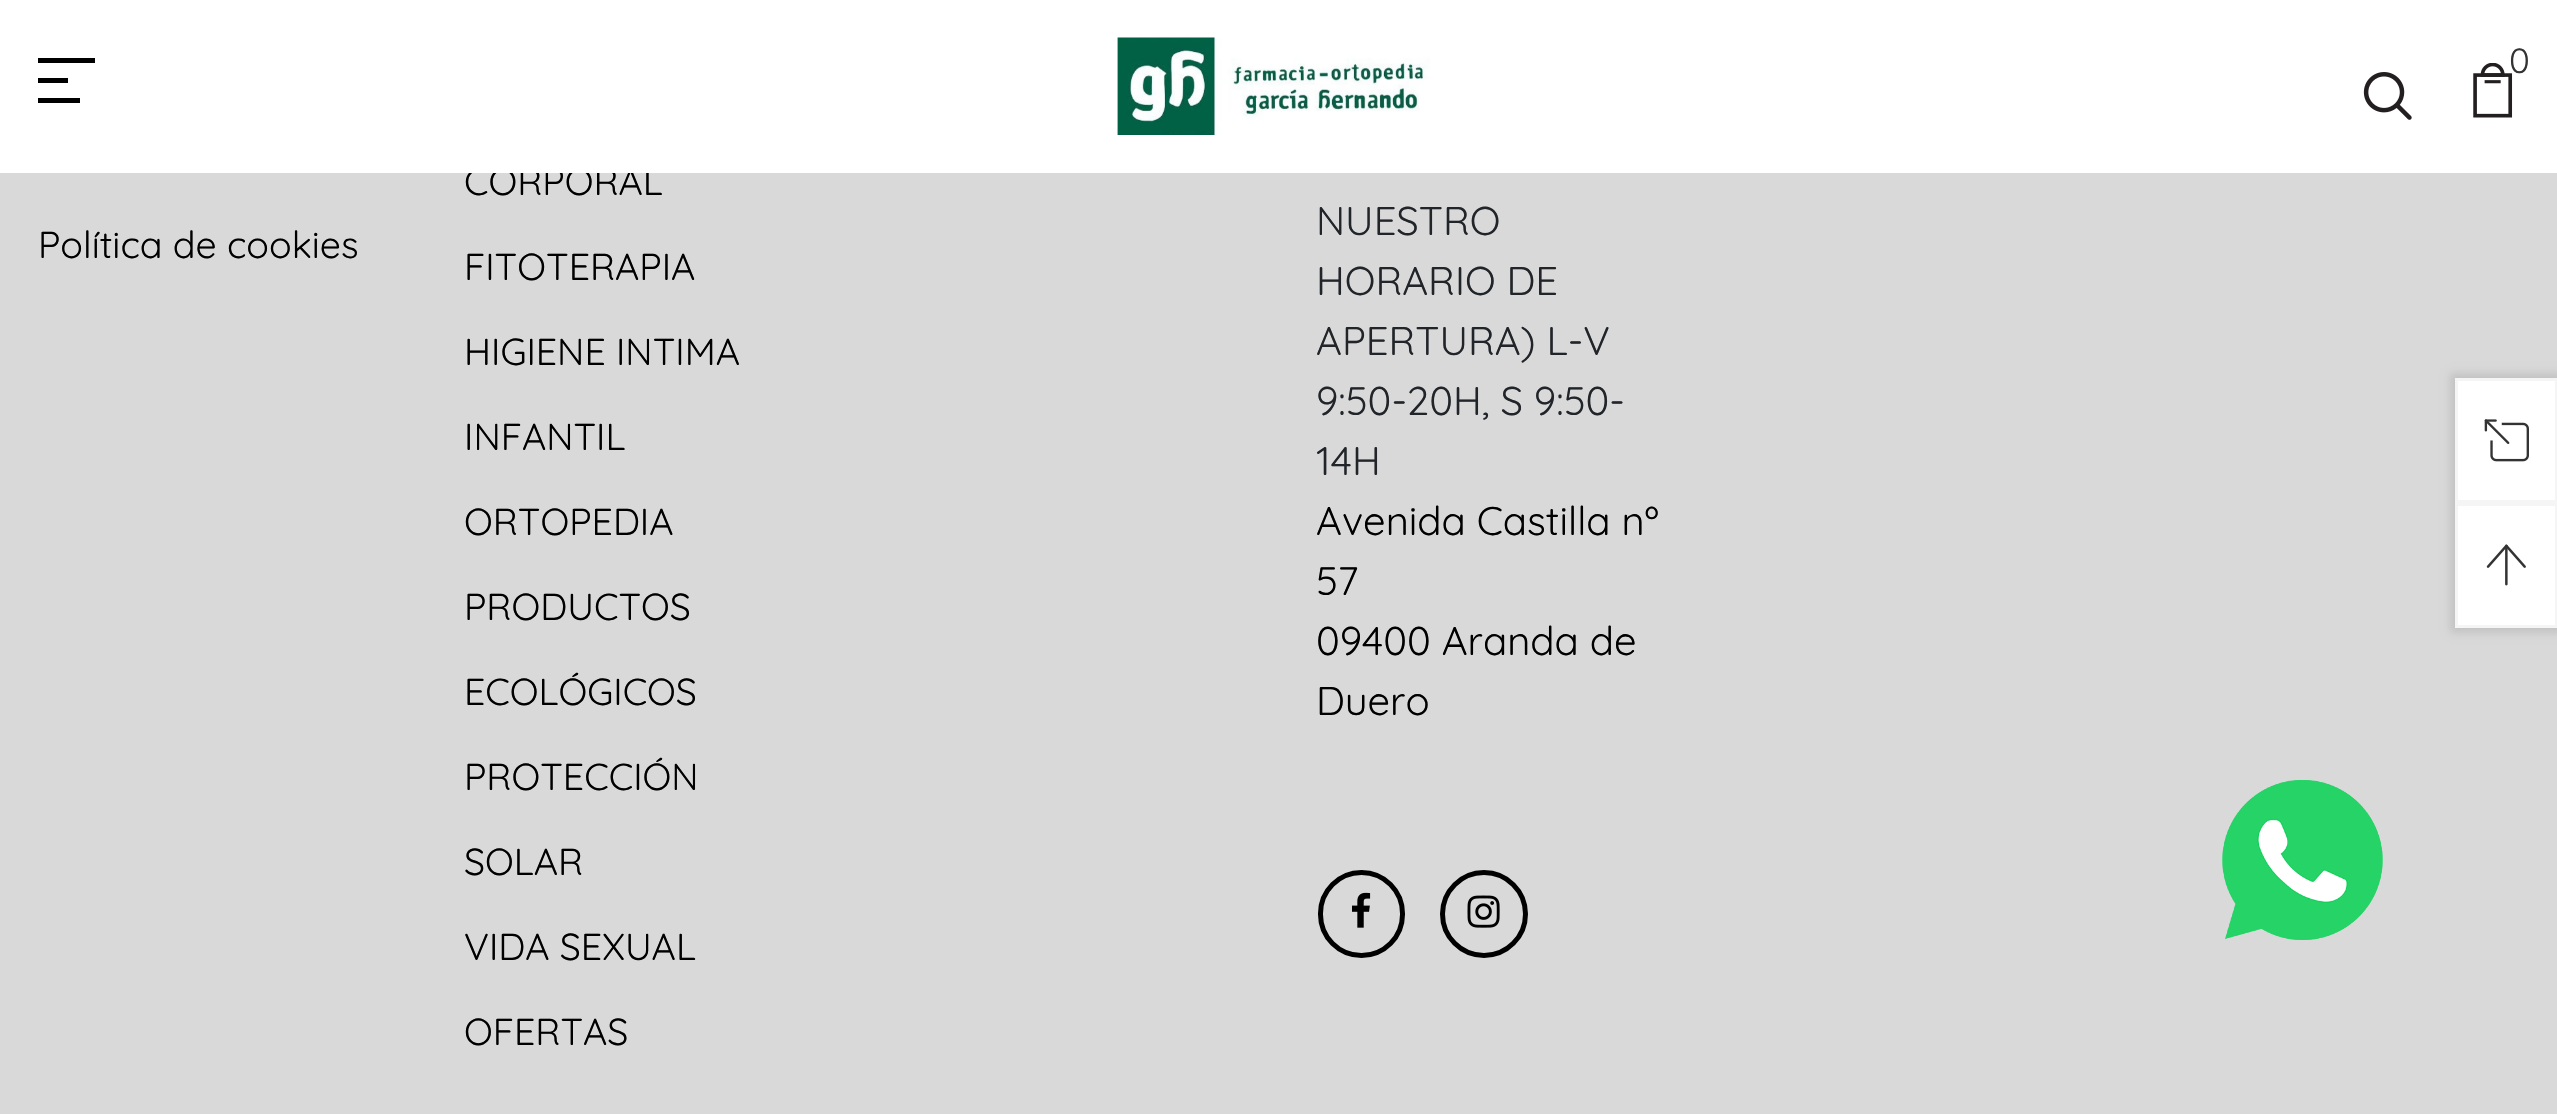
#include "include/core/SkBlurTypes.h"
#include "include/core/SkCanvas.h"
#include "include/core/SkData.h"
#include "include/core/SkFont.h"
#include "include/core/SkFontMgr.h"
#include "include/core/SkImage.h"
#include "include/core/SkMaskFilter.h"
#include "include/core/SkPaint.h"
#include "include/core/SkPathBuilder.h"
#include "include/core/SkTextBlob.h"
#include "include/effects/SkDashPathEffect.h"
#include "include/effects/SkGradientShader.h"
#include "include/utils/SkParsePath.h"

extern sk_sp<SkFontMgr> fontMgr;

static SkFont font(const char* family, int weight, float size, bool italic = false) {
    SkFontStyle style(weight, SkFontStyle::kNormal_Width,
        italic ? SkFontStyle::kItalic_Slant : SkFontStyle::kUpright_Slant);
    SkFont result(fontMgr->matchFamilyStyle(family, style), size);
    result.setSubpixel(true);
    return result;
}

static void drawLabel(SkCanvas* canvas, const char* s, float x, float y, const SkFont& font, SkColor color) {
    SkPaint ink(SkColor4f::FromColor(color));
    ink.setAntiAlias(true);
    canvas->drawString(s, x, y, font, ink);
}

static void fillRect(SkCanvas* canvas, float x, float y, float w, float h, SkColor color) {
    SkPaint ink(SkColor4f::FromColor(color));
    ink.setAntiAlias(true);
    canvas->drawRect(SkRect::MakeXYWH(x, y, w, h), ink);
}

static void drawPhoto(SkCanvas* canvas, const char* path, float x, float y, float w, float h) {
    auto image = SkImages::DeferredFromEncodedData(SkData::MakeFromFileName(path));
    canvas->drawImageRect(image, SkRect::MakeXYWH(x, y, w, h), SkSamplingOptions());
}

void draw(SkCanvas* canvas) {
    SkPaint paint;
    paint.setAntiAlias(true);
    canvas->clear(0xFFD9D9D9);
    SkFont font1 = font("Quicksand", 400, 37.5f);
    drawLabel(canvas, "CORPORAL", 464, 195, font1, 0xFF000000);
    fillRect(canvas, 0, 0, 2557, 173, 0xFFFFFFFF);
    fillRect(canvas, 38, 58, 57, 5, 0xFF000000);
    fillRect(canvas, 38, 78, 30, 5, 0xFF000000);
    fillRect(canvas, 38, 98, 42, 5, 0xFF000000);
    drawPhoto(canvas, "assets/img1.png", 1117, 37, 313, 98);
    drawPhoto(canvas, "assets/img2.png", 2473, 63, 40, 55);
    SkFont font2 = font("Quicksand", 400, 35);
    drawLabel(canvas, "0", 2509, 73, font2, 0xFF333333);
    drawPhoto(canvas, "assets/img3.png", 2363, 72, 49, 48);
    drawLabel(canvas, "Política de cookies", 38, 258, font1, 0xFF000000);
    drawLabel(canvas, "FITOTERAPIA", 464, 280, font1, 0xFF000000);
    drawLabel(canvas, "HIGIENE INTIMA", 464, 365, font1, 0xFF000000);
    drawLabel(canvas, "INFANTIL", 464, 450, font1, 0xFF000000);
    drawLabel(canvas, "ORTOPEDIA", 464, 535, font1, 0xFF000000);
    drawLabel(canvas, "PRODUCTOS", 464, 620, font1, 0xFF000000);
    drawLabel(canvas, "ECOLÓGICOS", 464, 705, font1, 0xFF000000);
    drawLabel(canvas, "PROTECCIÓN", 464, 790, font1, 0xFF000000);
    drawLabel(canvas, "SOLAR", 464, 875, font1, 0xFF000000);
    drawLabel(canvas, "VIDA SEXUAL", 464, 960, font1, 0xFF000000);
    drawLabel(canvas, "OFERTAS", 464, 1045, font1, 0xFF000000);
    SkFont font3 = font("Quicksand", 400, 40);
    drawLabel(canvas, "NUESTRO", 1316, 235, font3, 0xFF212529);
    drawLabel(canvas, "HORARIO DE", 1316, 295, font3, 0xFF212529);
    drawLabel(canvas, "APERTURA) L-V", 1316, 355, font3, 0xFF212529);
    drawLabel(canvas, "9:50-20H, S 9:50-", 1316, 415, font3, 0xFF212529);
    drawLabel(canvas, "14H", 1316, 475, font3, 0xFF212529);
    drawLabel(canvas, "Avenida Castilla nº", 1316, 535, font3, 0xFF000000);
    drawLabel(canvas, "57", 1316, 595, font3, 0xFF000000);
    drawLabel(canvas, "09400 Aranda de", 1316, 655, font3, 0xFF000000);
    drawLabel(canvas, "Duero", 1316, 715, font3, 0xFF000000);
    paint.setStroke(true);
    paint.setStrokeWidth(5);
    paint.setColor(0xFF000000);
    canvas->drawRoundRect(SkRect::MakeXYWH(1320.5f, 872.5f, 82, 83), 41, 41, paint);
    drawPhoto(canvas, "assets/img4.png", 1352, 892, 19, 36);
    canvas->drawCircle(1484, 914, 41.5f, paint);
    drawPhoto(canvas, "assets/img5.png", 1467, 895, 33, 33);
    paint.setStroke(false);
    paint.setColor(0x1A000000);
    paint.setMaskFilter(SkMaskFilter::MakeBlur(kNormal_SkBlurStyle, 4));
    canvas->drawRect(SkRect::MakeXYWH(2450, 373, 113, 260), paint);
    paint.setMaskFilter(nullptr);
    fillRect(canvas, 2458, 381, 97, 244, 0xFFFFFFFF);
    paint.setStroke(true);
    paint.setStrokeWidth(3);
    paint.setColor(0xFFF5F5F6);
    canvas->drawRect(SkRect::MakeXYWH(2456.5f, 379.5f, 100, 122), paint);
    drawPhoto(canvas, "assets/img6.png", 2484, 419, 45, 43);
    canvas->drawRect(SkRect::MakeXYWH(2456.5f, 504.5f, 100, 122), paint);
    drawPhoto(canvas, "assets/img7.png", 2486, 544, 40, 42);
    drawPhoto(canvas, "assets/img8.png", 2222, 780, 161, 160);
    drawPhoto(canvas, "assets/img9.png", 2222, 780, 161, 160);
}
